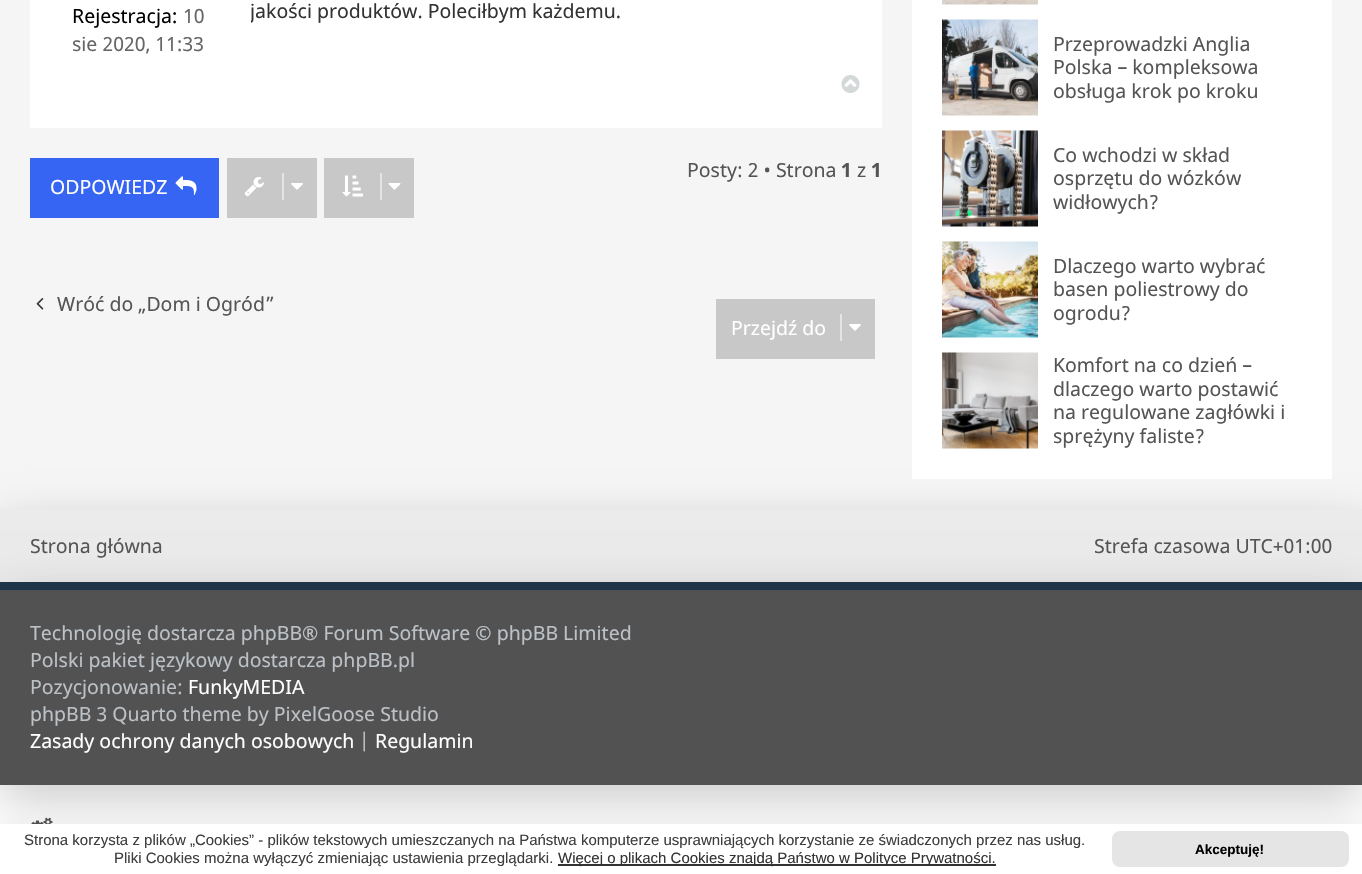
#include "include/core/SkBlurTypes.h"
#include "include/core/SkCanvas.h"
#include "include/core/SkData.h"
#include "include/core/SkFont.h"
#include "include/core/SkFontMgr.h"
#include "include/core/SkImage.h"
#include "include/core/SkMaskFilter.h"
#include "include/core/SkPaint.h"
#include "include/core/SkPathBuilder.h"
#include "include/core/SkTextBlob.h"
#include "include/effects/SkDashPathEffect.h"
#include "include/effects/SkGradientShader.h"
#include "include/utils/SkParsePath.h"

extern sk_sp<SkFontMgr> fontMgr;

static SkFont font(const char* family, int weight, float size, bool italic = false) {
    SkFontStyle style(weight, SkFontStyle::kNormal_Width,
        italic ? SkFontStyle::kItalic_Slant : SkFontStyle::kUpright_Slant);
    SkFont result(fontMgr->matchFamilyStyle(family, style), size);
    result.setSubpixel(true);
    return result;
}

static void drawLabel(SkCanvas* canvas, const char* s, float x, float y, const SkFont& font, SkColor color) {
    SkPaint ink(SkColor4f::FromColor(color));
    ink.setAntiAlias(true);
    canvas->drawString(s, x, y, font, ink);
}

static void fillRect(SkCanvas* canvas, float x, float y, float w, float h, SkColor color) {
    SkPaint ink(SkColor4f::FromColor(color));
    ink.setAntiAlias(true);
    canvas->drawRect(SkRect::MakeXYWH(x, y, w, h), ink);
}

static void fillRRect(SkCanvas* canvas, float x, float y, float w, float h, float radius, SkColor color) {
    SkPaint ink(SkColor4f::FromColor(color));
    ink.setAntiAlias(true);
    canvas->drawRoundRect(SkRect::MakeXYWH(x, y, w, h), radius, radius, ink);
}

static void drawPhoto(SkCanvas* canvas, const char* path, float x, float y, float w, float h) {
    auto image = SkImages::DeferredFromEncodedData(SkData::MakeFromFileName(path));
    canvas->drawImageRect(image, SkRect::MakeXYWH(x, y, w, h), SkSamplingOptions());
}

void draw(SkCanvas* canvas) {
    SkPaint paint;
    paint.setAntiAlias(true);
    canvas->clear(0xFFFFFFFF);
    fillRect(canvas, 0, 0, 1362, 509, 0xFFF5F5F5);
    fillRect(canvas, 30, 0, 852, 128, 0xFFFFFFFF);
    SkFont font1 = font("Noto Sans", 400, 19.5f);
    drawLabel(canvas, "Rejestracja:", 72, 23, font1, 0xFF000000);
    drawLabel(canvas, "10", 183, 23, font1, 0xFF666666);
    drawLabel(canvas, "sie 2020, 11:33", 72, 51, font1, 0xFF666666);
    canvas->save();
    canvas->clipRect(SkRect::MakeXYWH(251, 0, 601, 26));
    drawLabel(canvas, "jakości produktów. Poleciłbym każdemu.", 250, 18, font1, 0xFF333333);
    canvas->restore();
    drawPhoto(canvas, "assets/img1.png", 841, 75, 19, 18);
    fillRect(canvas, 227, 158, 90, 60, 0xFFC8C8C8);
    drawPhoto(canvas, "assets/img2.png", 244, 177, 20, 20);
    fillRect(canvas, 282, 173, 2, 27, 0xFFE4E4E4);
    drawPhoto(canvas, "assets/img3.png", 291, 183, 12, 7);
    fillRect(canvas, 324, 158, 90, 60, 0xFFC8C8C8);
    drawPhoto(canvas, "assets/img4.png", 342, 175, 21, 22);
    fillRect(canvas, 380, 173, 2, 27, 0xFFE4E4E4);
    drawPhoto(canvas, "assets/img5.png", 388, 183, 13, 7);
    drawLabel(canvas, "Posty: 2 • Strona", 687, 177, font1, 0xFF555555);
    SkFont font2 = font("Noto Sans", 700, 19.5f);
    drawLabel(canvas, "1", 841, 177, font2, 0xFF555555);
    drawLabel(canvas, "z", 857, 177, font1, 0xFF555555);
    drawLabel(canvas, "1", 871, 177, font2, 0xFF555555);
    fillRect(canvas, 30, 158, 189, 60, 0xFF3664F3);
    drawLabel(canvas, "ODPOWIEDZ", 50, 194, font1, 0xFFFFFFFF);
    drawPhoto(canvas, "assets/img6.png", 175, 176, 22, 19);
    drawPhoto(canvas, "assets/img7.png", 36, 298, 8, 12);
    drawLabel(canvas, "Wróć do „Dom i Ogród”", 57, 311, font1, 0xFF555555);
    fillRect(canvas, 716, 299, 159, 60, 0xFFC8C8C8);
    drawLabel(canvas, "Przejdź do", 731, 335, font1, 0xFFFFFFFF);
    fillRect(canvas, 840, 314, 2, 27, 0xFFE4E4E4);
    drawPhoto(canvas, "assets/img3.png", 849, 324, 12, 7);
    paint.setColor(0x33000000);
    paint.setMaskFilter(SkMaskFilter::MakeBlur(kNormal_SkBlurStyle, 22.5f));
    canvas->drawRect(SkRect::MakeXYWH(0, 524, 1362, 73), paint);
    paint.setMaskFilter(nullptr);
    fillRect(canvas, 912, 0, 420, 479, 0xFFFFFFFF);
    drawPhoto(canvas, "assets/img8.png", 942, 0, 96, 5);
    drawPhoto(canvas, "assets/img9.png", 942, 19, 96, 97);
    drawLabel(canvas, "Przeprowadzki Anglia", 1053, 51, font1, 0xFF555555);
    drawLabel(canvas, "Polska – kompleksowa", 1053, 74, font1, 0xFF555555);
    drawLabel(canvas, "obsługa krok po kroku", 1053, 98, font1, 0xFF555555);
    drawPhoto(canvas, "assets/img10.png", 942, 130, 96, 97);
    drawLabel(canvas, "Co wchodzi w skład", 1053, 162, font1, 0xFF555555);
    drawLabel(canvas, "osprzętu do wózków", 1053, 185, font1, 0xFF555555);
    drawLabel(canvas, "widłowych?", 1053, 209, font1, 0xFF555555);
    drawPhoto(canvas, "assets/img11.png", 942, 241, 96, 97);
    drawLabel(canvas, "Dlaczego warto wybrać", 1053, 273, font1, 0xFF555555);
    drawLabel(canvas, "basen poliestrowy do", 1053, 296, font1, 0xFF555555);
    drawLabel(canvas, "ogrodu?", 1053, 320, font1, 0xFF555555);
    drawPhoto(canvas, "assets/img12.png", 942, 352, 96, 97);
    drawLabel(canvas, "Komfort na co dzień –", 1053, 372, font1, 0xFF555555);
    drawLabel(canvas, "dlaczego warto postawić", 1053, 396, font1, 0xFF555555);
    drawLabel(canvas, "na regulowane zagłówki i", 1053, 419, font1, 0xFF555555);
    drawLabel(canvas, "sprężyny faliste?", 1053, 443, font1, 0xFF555555);
    fillRect(canvas, 0, 509, 1362, 73, 0xFFEBEBEB);
    paint.setMaskFilter(SkMaskFilter::MakeBlur(kNormal_SkBlurStyle, 22.5f));
    canvas->drawRect(SkRect::MakeXYWH(0, 597, 1362, 203), paint);
    paint.setMaskFilter(nullptr);
    drawLabel(canvas, "Strona główna", 30, 553, font1, 0xFF555555);
    drawLabel(canvas, "Strefa czasowa UTC+01:00", 1094, 553, font1, 0xFF555555);
    fillRect(canvas, 0, 590, 1362, 195, 0xFF525252);
    fillRect(canvas, 0, 582, 1362, 8, 0xFF1E3449);
    drawLabel(canvas, "Technologię dostarcza phpBB® Forum Software © phpBB Limited", 30, 640, font1, 0xFFBCC1C6);
    drawLabel(canvas, "Polski pakiet językowy dostarcza phpBB.pl", 30, 667, font1, 0xFFBCC1C6);
    drawLabel(canvas, "Pozycjonowanie:", 30, 694, font1, 0xFFBCC1C6);
    drawLabel(canvas, "FunkyMEDIA", 188, 694, font1, 0xFFFFFFFF);
    drawLabel(canvas, "phpBB 3 Quarto theme by PixelGoose Studio", 30, 721, font1, 0xFFBCC1C6);
    drawLabel(canvas, "Zasady ochrony danych osobowych", 30, 748, font1, 0xFFFFFFFF);
    drawLabel(canvas, "|", 359, 748, font1, 0xFFBCC1C6);
    drawLabel(canvas, "Regulamin", 375, 748, font1, 0xFFFFFFFF);
    drawPhoto(canvas, "assets/img13.png", 31, 817, 22, 7);
    paint.setColor(0x0D000000);
    paint.setMaskFilter(SkMaskFilter::MakeBlur(kNormal_SkBlurStyle, 12));
    canvas->drawRect(SkRect::MakeXYWH(0, 824, 1362, 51), paint);
    paint.setMaskFilter(nullptr);
    fillRect(canvas, 0, 824, 1362, 50, 0xFFFFFFFF);
    SkFont font3 = font("Liberation Sans", 400, 15);
    drawLabel(canvas, "Strona korzysta z plików „Cookies” - plików tekstowych umieszczanych na Państwa komputerze usprawniających korzystanie ze świadczonych przez nas usług.", 24, 845, font3, 0xFF3E3E3E);
    drawLabel(canvas, "Pliki Cookies można wyłączyć zmieniając ustawienia przeglądarki.", 114, 863, font3, 0xFF3E3E3E);
    fillRect(canvas, 558, 864, 438, 2, 0xFF333333);
    drawLabel(canvas, "Więcej o plikach Cookies znajdą Państwo w Polityce Prywatności.", 558, 863, font3, 0xFF333333);
    fillRRect(canvas, 1112, 831, 237, 36, 8, 0xFFE5E5E5);
    SkFont font4 = font("Liberation Sans", 700, 13.5f);
    drawLabel(canvas, "Akceptuję!", 1195, 854, font4, 0xFF000000);
}
